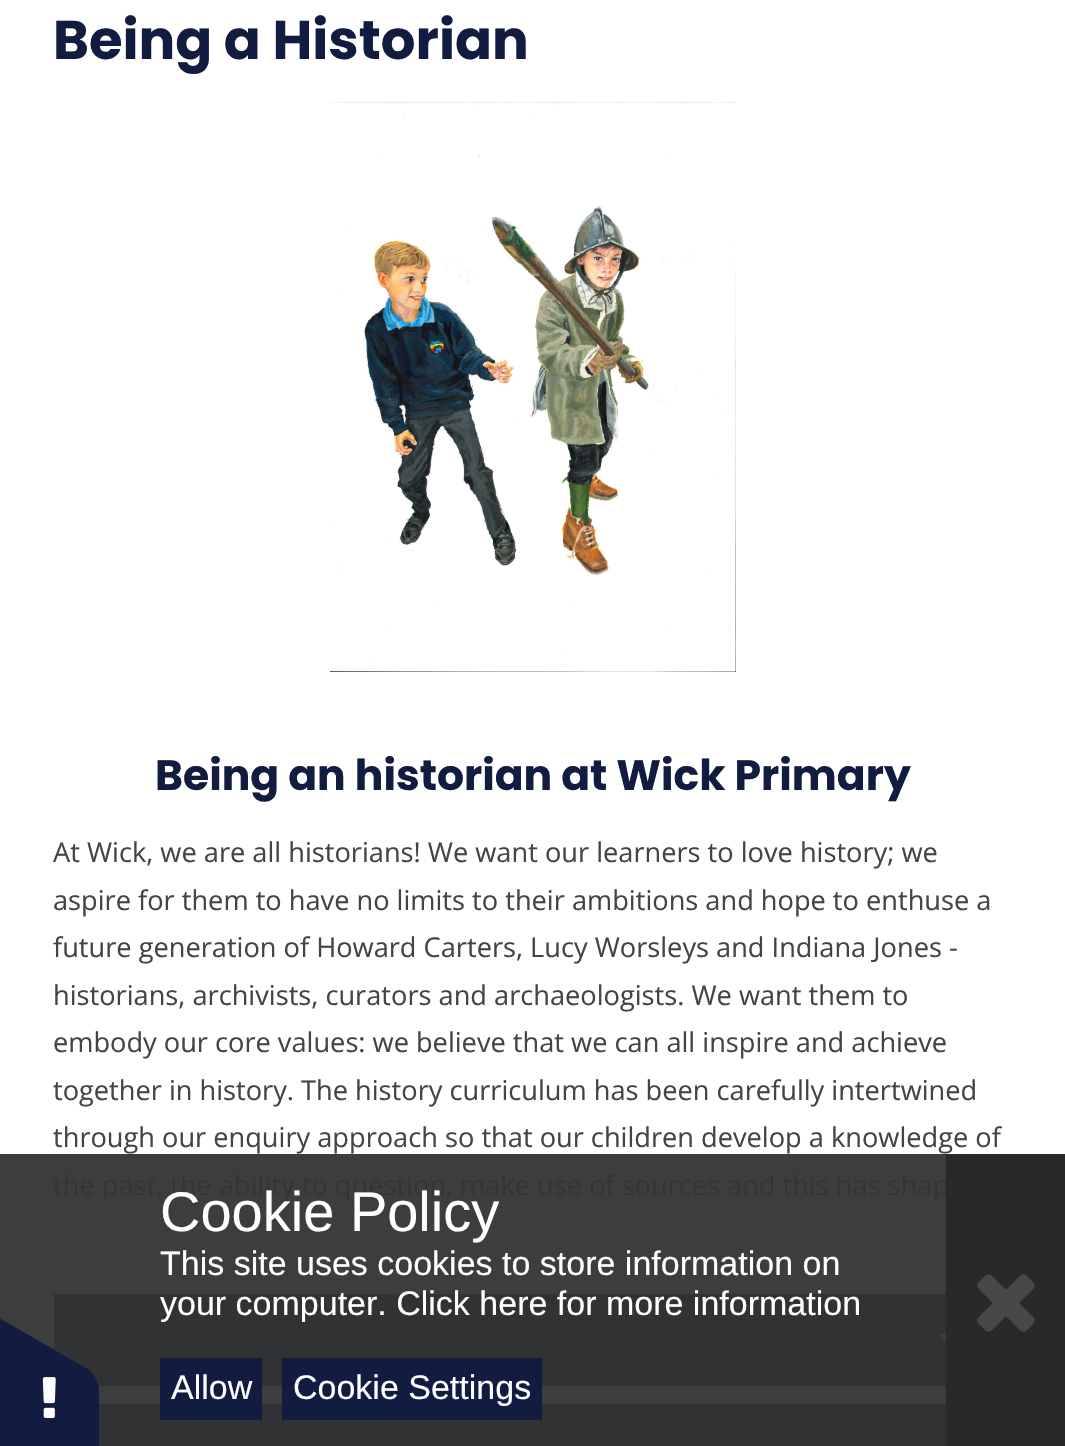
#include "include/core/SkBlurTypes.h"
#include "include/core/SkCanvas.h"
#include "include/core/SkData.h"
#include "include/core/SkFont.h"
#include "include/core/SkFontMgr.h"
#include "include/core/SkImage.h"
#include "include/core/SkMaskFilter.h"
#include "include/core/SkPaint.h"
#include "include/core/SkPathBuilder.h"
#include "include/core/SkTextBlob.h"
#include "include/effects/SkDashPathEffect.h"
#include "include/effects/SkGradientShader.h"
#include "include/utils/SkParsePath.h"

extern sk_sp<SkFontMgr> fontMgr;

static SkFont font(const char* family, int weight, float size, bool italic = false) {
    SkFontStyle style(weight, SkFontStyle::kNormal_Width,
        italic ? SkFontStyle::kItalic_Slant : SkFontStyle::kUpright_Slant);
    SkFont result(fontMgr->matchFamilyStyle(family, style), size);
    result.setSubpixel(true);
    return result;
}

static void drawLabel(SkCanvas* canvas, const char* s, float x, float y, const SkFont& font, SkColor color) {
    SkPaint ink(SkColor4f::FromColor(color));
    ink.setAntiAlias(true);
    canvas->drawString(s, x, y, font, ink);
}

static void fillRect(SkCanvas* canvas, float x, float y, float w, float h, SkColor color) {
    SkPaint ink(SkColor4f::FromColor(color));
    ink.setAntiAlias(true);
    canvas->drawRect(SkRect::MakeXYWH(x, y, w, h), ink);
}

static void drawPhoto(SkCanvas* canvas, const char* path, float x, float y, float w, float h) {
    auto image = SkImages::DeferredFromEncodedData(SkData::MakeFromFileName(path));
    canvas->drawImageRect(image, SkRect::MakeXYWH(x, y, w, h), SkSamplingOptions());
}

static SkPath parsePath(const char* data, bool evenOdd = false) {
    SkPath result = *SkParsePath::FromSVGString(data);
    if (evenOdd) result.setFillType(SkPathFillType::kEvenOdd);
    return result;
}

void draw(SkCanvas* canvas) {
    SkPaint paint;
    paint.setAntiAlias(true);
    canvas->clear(0xFFFFFFFF);
    fillRect(canvas, 0, 1154, 946, 250, 0xFF3D3D3D);
    SkFont font1 = font("Poppins", 700, 54.5f);
    drawLabel(canvas, "Being a Historian", 53, 59, font1, 0xFF111C40);
    drawPhoto(canvas, "assets/img1.png", 330, 102, 406, 570);
    SkFont font2 = font("Poppins", 700, 42.5f);
    drawLabel(canvas, "Being an historian at Wick Primary", 155, 790, font2, 0xFF111C40);
    SkFont font3 = font("Open Sans", 400, 27.2f);
    drawLabel(canvas, "At Wick, we are all historians! We want our learners to love history; we", 53, 862, font3, 0xFF444444);
    drawLabel(canvas, "aspire for them to have no limits to their ambitions and hope to enthuse a", 53, 910, font3, 0xFF444444);
    drawLabel(canvas, "future generation of Howard Carters, Lucy Worsleys and Indiana Jones -", 53, 957, font3, 0xFF444444);
    drawLabel(canvas, "historians, archivists, curators and archaeologists. We want them to", 53, 1005, font3, 0xFF444444);
    drawLabel(canvas, "embody our core values: we believe that we can all inspire and achieve", 53, 1052, font3, 0xFF444444);
    drawLabel(canvas, "together in history. The history curriculum has been carefully intertwined", 53, 1100, font3, 0xFF444444);
    drawLabel(canvas, "through our enquiry approach so that our children develop a knowledge of", 53, 1147, font3, 0xFF444444);
    drawLabel(canvas, "the past, the ability to question, make use of sources and this has shap", 53, 1195, font3, 0xFF343434);
    fillRect(canvas, 54, 1294, 892, 92, 0xFF313234);
    paint.setColor(0xFF3D3D3D);
    canvas->drawPath(parsePath("M938 1334H962L950 1346Z"), paint);
    fillRect(canvas, 99, 1404, 847, 42, 0xFF313234);
    paint.setColor(0xFF111C40);
    canvas->drawPath(parsePath("M99 1392V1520C99 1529 96 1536 91 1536H-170C-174 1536-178 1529-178 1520V1392C-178 1383-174 1376-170 1376H91C96 1376 99 1383 99 1392Z"), paint);
    canvas->drawPath(parsePath("M-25 1304L86 1368C93 1372 98 1379 95 1383L-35 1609C-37 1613-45 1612-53 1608L-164 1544C-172 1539-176 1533-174 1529L-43 1303C-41 1299-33 1299-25 1304Z"), paint);
    drawPhoto(canvas, "assets/img2.png", 42, 1377, 14, 41);
    SkFont font4 = font("Liberation Sans", 400, 56);
    drawLabel(canvas, "Cookie Policy", 160, 1231, font4, 0xFFFFFFFF);
    SkFont font5 = font("Liberation Sans", 400, 34);
    drawLabel(canvas, "This site uses cookies to store information on", 160, 1275, font5, 0xFFFFFFFF);
    drawLabel(canvas, "your computer. Click here for more information", 160, 1315, font5, 0xFFFFFFFF);
    fillRect(canvas, 160, 1358, 102, 62, 0xFF111C40);
    drawLabel(canvas, "Allow", 171, 1399, font5, 0xFFFFFFFF);
    fillRect(canvas, 282, 1358, 260, 62, 0xFF111C40);
    drawLabel(canvas, "Cookie Settings", 293, 1399, font5, 0xFFFFFFFF);
    fillRect(canvas, 946, 1154, 119, 292, 0xFF292929);
    drawPhoto(canvas, "assets/img3.png", 977, 1274, 58, 58);
}
